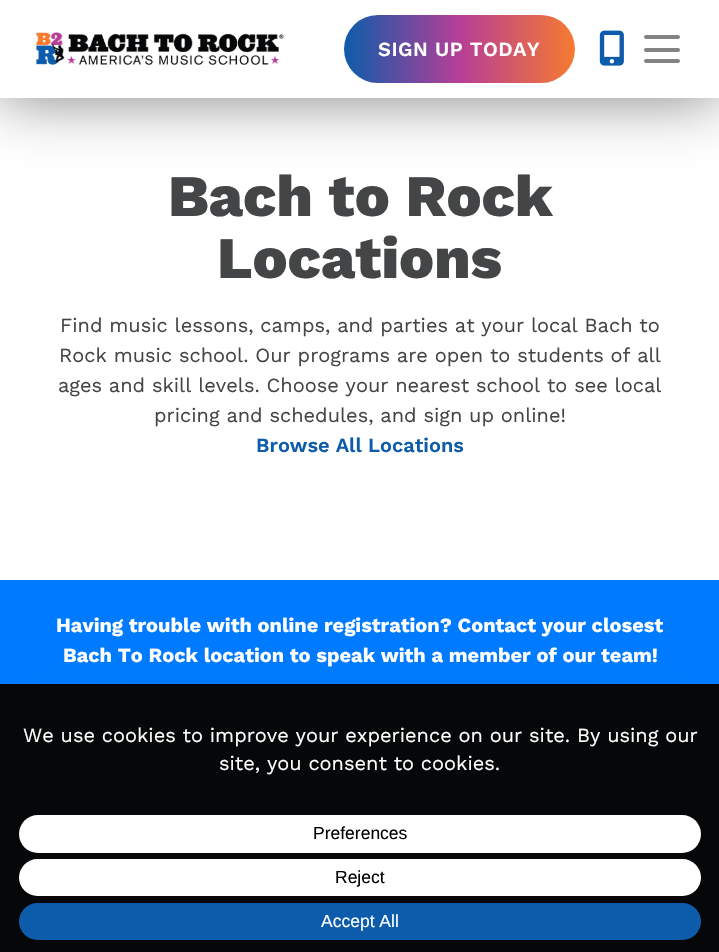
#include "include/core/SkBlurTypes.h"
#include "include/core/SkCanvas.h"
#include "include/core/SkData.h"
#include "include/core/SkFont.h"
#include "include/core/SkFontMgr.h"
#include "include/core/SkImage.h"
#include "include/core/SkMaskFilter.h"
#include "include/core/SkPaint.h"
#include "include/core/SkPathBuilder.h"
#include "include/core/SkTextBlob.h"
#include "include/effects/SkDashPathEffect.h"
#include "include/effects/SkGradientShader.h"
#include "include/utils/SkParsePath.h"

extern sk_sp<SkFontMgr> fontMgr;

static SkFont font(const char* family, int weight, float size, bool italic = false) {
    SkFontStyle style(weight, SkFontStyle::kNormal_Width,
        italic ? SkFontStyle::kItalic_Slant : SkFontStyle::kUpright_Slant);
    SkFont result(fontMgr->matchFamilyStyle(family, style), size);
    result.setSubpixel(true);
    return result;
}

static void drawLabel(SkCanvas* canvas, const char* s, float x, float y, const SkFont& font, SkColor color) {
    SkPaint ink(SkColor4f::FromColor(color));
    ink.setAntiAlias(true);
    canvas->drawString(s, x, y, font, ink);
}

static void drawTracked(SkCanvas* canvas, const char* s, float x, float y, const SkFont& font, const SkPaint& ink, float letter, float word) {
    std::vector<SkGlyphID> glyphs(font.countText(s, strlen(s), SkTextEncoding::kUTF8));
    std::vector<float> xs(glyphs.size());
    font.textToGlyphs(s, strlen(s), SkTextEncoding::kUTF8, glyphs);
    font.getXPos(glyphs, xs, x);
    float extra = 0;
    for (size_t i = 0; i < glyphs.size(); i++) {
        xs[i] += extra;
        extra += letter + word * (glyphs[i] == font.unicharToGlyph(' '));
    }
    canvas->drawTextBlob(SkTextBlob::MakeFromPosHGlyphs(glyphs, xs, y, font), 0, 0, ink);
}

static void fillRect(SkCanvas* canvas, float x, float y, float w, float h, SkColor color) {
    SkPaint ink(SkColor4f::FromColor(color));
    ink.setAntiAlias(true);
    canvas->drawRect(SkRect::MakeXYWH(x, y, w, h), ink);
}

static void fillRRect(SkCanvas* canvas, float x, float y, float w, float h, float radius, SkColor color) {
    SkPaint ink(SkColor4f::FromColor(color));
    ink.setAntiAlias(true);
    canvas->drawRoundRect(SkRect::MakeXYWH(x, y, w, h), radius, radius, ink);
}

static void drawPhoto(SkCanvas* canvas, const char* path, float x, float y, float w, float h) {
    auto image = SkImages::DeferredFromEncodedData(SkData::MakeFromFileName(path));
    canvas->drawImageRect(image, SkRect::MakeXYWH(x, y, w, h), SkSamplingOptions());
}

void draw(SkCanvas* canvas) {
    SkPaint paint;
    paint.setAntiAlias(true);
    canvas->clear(0xFFFFFFFF);
    paint.setColor(0x80000000);
    paint.setMaskFilter(SkMaskFilter::MakeBlur(kNormal_SkBlurStyle, 31));
    canvas->drawRect(SkRect::MakeXYWH(0, 0, 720, 98), paint);
    paint.setMaskFilter(nullptr);
    fillRect(canvas, 0, 0, 719, 98, 0xFFFFFFFF);
    drawPhoto(canvas, "assets/img1.png", 36, 32, 248, 33);
    {
        const SkColor colors[] = {0xFF0D5CAB, 0xFFB63E97, 0xFFF67A30};
        const float stops[] = {0, 0.5f, 1};
        const SkPoint ends[] = {{344, 49}, {575, 49}};
        paint.setShader(SkGradientShader::MakeLinear(ends, colors, stops, 3, SkTileMode::kClamp));
        paint.setAlpha(255);
    }
    canvas->drawRoundRect(SkRect::MakeXYWH(344, 15, 231, 68), 34, 34, paint);
    SkFont font1 = font("Work Sans", 600, 20);
    paint.setShader(nullptr);
    paint.setColor(0xFFFFFFFF);
    drawTracked(canvas, "SIGN UP TODAY", 378, 56, font1, paint, 0.5f, 0);
    drawPhoto(canvas, "assets/img2.png", 599, 30, 25, 36);
    fillRRect(canvas, 644, 35, 36, 4, 2, 0xFF828384);
    fillRRect(canvas, 644, 48, 36, 4, 2, 0xFF828384);
    fillRRect(canvas, 644, 59, 36, 4, 2, 0xFF828384);
    SkFont font2 = font("Work Sans", 800, 58.75f);
    drawLabel(canvas, "Bach to Rock", 168, 216, font2, 0xFF444546);
    drawLabel(canvas, "Locations", 217, 278, font2, 0xFF444546);
    SkFont font3 = font("Work Sans", 400, 20);
    drawLabel(canvas, "Find music lessons, camps, and parties at your local Bach to", 60, 332, font3, 0xFF444546);
    drawLabel(canvas, "Rock music school. Our programs are open to students of all", 59, 362, font3, 0xFF444546);
    drawLabel(canvas, "ages and skill levels. Choose your nearest school to see local", 58, 392, font3, 0xFF444546);
    drawLabel(canvas, "pricing and schedules, and sign up online!", 154, 422, font3, 0xFF444546);
    drawLabel(canvas, "Browse All Locations", 256, 452, font1, 0xFF0D5CAB);
    fillRect(canvas, 0, 580, 719, 104, 0xFF007BFF);
    SkFont font4 = font("Work Sans", 700, 20);
    drawLabel(canvas, "Having trouble with online registration? Contact your closest", 56, 632, font4, 0xFFFFFFFF);
    drawLabel(canvas, "Bach To Rock location to speak with a member of our team!", 63, 662, font4, 0xFFFFFFFF);
    paint.setColor(0x59000000);
    paint.setMaskFilter(SkMaskFilter::MakeBlur(kNormal_SkBlurStyle, 31));
    canvas->drawRoundRect(SkRect::MakeXYWH(-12, 728, 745, 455), 138, 138, paint);
    paint.setMaskFilter(nullptr);
    fillRect(canvas, 0, 684, 719, 268, 0xFF050708);
    drawLabel(canvas, "We use cookies to improve your experience on our site. By using our", 23, 742, font3, 0xFFFFFFFF);
    drawLabel(canvas, "site, you consent to cookies.", 219, 770, font3, 0xFFFFFFFF);
    fillRRect(canvas, 19, 815, 682, 38, 19, 0xFFFFFFFF);
    SkFont font5 = font("Liberation Sans", 400, 17.5f);
    drawLabel(canvas, "Preferences", 313, 839, font5, 0xFF000000);
    fillRRect(canvas, 19, 859, 682, 37, 18.5f, 0xFFFFFFFF);
    drawLabel(canvas, "Reject", 335, 883, font5, 0xFF000000);
    fillRRect(canvas, 19, 903, 682, 37, 18.5f, 0xFF0D5CAB);
    drawLabel(canvas, "Accept All", 321, 927, font5, 0xFFFFFFFF);
}
